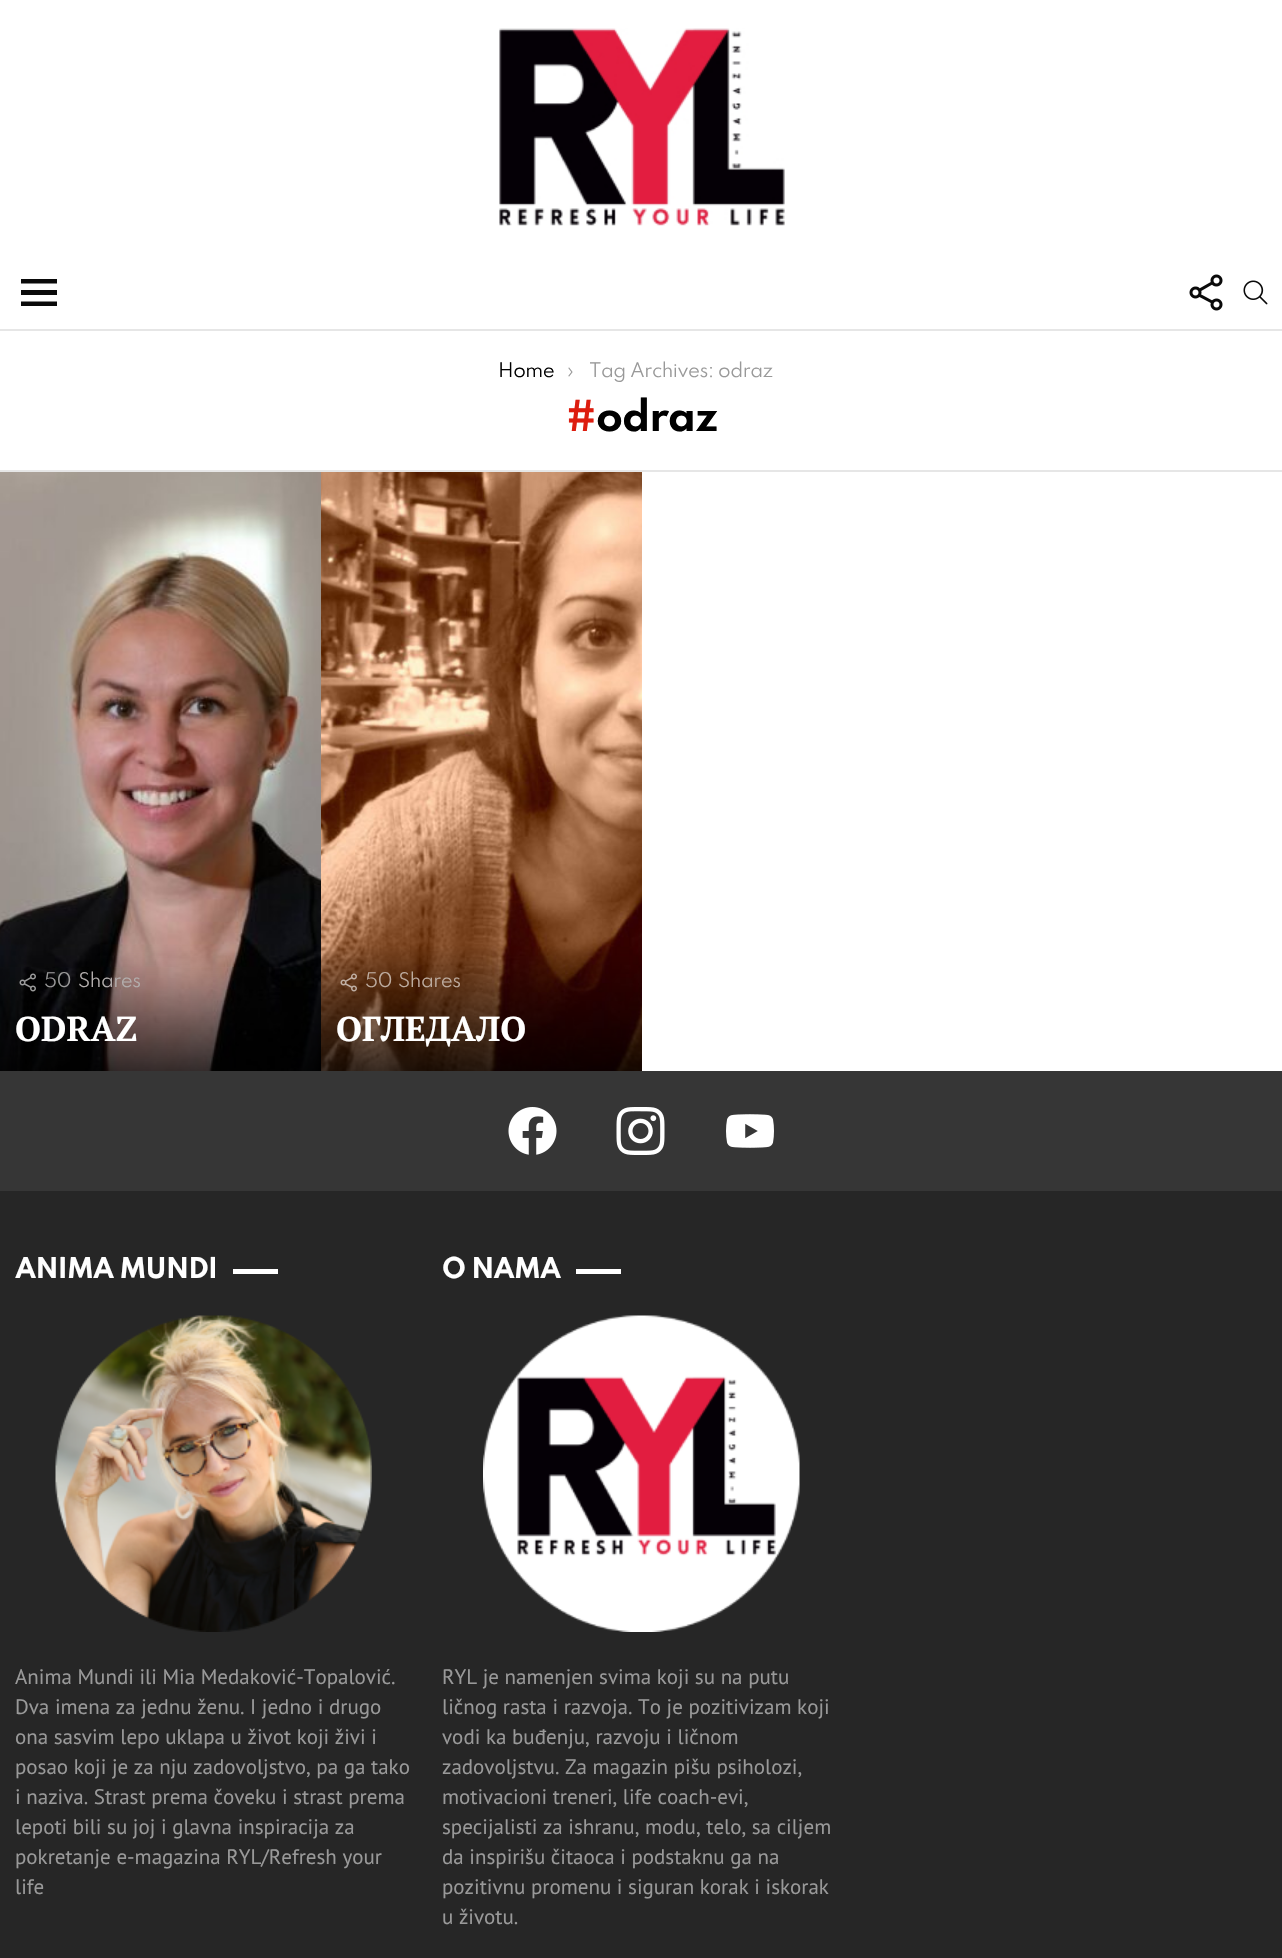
#include "include/core/SkBlurTypes.h"
#include "include/core/SkCanvas.h"
#include "include/core/SkData.h"
#include "include/core/SkFont.h"
#include "include/core/SkFontMgr.h"
#include "include/core/SkImage.h"
#include "include/core/SkMaskFilter.h"
#include "include/core/SkPaint.h"
#include "include/core/SkPathBuilder.h"
#include "include/core/SkTextBlob.h"
#include "include/effects/SkDashPathEffect.h"
#include "include/effects/SkGradientShader.h"
#include "include/utils/SkParsePath.h"

extern sk_sp<SkFontMgr> fontMgr;

static SkFont font(const char* family, int weight, float size, bool italic = false) {
    SkFontStyle style(weight, SkFontStyle::kNormal_Width,
        italic ? SkFontStyle::kItalic_Slant : SkFontStyle::kUpright_Slant);
    SkFont result(fontMgr->matchFamilyStyle(family, style), size);
    result.setSubpixel(true);
    return result;
}

static void drawLabel(SkCanvas* canvas, const char* s, float x, float y, const SkFont& font, SkColor color) {
    SkPaint ink(SkColor4f::FromColor(color));
    ink.setAntiAlias(true);
    canvas->drawString(s, x, y, font, ink);
}

static void drawTracked(SkCanvas* canvas, const char* s, float x, float y, const SkFont& font, const SkPaint& ink, float letter, float word) {
    std::vector<SkGlyphID> glyphs(font.countText(s, strlen(s), SkTextEncoding::kUTF8));
    std::vector<float> xs(glyphs.size());
    font.textToGlyphs(s, strlen(s), SkTextEncoding::kUTF8, glyphs);
    font.getXPos(glyphs, xs, x);
    float extra = 0;
    for (size_t i = 0; i < glyphs.size(); i++) {
        xs[i] += extra;
        extra += letter + word * (glyphs[i] == font.unicharToGlyph(' '));
    }
    canvas->drawTextBlob(SkTextBlob::MakeFromPosHGlyphs(glyphs, xs, y, font), 0, 0, ink);
}

static void fillRect(SkCanvas* canvas, float x, float y, float w, float h, SkColor color) {
    SkPaint ink(SkColor4f::FromColor(color));
    ink.setAntiAlias(true);
    canvas->drawRect(SkRect::MakeXYWH(x, y, w, h), ink);
}

static void drawPhoto(SkCanvas* canvas, const char* path, float x, float y, float w, float h) {
    auto image = SkImages::DeferredFromEncodedData(SkData::MakeFromFileName(path));
    canvas->drawImageRect(image, SkRect::MakeXYWH(x, y, w, h), SkSamplingOptions());
}

static SkPath parsePath(const char* data, bool evenOdd = false) {
    SkPath result = *SkParsePath::FromSVGString(data);
    if (evenOdd) result.setFillType(SkPathFillType::kEvenOdd);
    return result;
}

void draw(SkCanvas* canvas) {
    SkPaint paint;
    paint.setAntiAlias(true);
    canvas->clear(0xFFFFFFFF);
    drawPhoto(canvas, "assets/img1.png", 499, 28, 286, 198);
    paint.setColor(0xFF0A0A0A);
    canvas->drawPath(parsePath("M21 279H57V283.5H21ZM21 290H57V295H21ZM21 301.5H57V306H21Z"), paint);
    drawPhoto(canvas, "assets/img2.png", 1189, 274, 34, 37);
    drawPhoto(canvas, "assets/img3.png", 1243, 280, 25, 25);
    fillRect(canvas, 0, 329, 1282, 2, 0xFFE6E6E6);
    SkFont font1 = font("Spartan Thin", 400, 18);
    paint.setColor(0xFF000000);
    drawTracked(canvas, "Home", 498, 377, font1, paint, -0.5f, 0);
    paint.setColor(0xFF999999);
    drawTracked(canvas, "›", 567, 377, font1, paint, -0.5f, 0);
    drawTracked(canvas, "Tag Archives: odraz", 589, 377, font1, paint, -0.5f, 0);
    SkFont font2 = font("Spartan Thin", 700, 39);
    paint.setColor(0xFFDD1D0F);
    drawTracked(canvas, "#", 566, 431, font2, paint, -1, 0);
    paint.setColor(0xFF000000);
    drawTracked(canvas, "odraz", 596, 431, font2, paint, -1, 0);
    fillRect(canvas, 0, 470, 1282, 2, 0xFFE6E6E6);
    drawPhoto(canvas, "assets/img4.png", 0, 472, 321, 599);
    drawPhoto(canvas, "assets/img5.png", 19, 973, 17, 19);
    paint.setColor(0xFF999999);
    drawTracked(canvas, "50", 44, 987, font1, paint, -0.5f, 0);
    paint.setColor(0xFFB3AEAD);
    drawTracked(canvas, "Shares", 78, 987, font1, paint, -0.5f, 0);
    SkFont font3 = font("PT Serif", 700, 34.5f);
    drawLabel(canvas, "ODRAZ", 15, 1041, font3, 0xFFFFFFFF);
    drawPhoto(canvas, "assets/img6.png", 321, 472, 321, 599);
    drawPhoto(canvas, "assets/img7.png", 340, 973, 17, 19);
    paint.setColor(0xFFBDACA0);
    drawTracked(canvas, "50", 365, 987, font1, paint, -0.5f, 0);
    drawTracked(canvas, "Shares", 398, 987, font1, paint, -0.5f, 0);
    drawLabel(canvas, "ОГЛЕДАЛО", 336, 1041, font3, 0xFFFFFFFF);
    fillRect(canvas, 0, 1071, 1282, 120, 0xFF363636);
    drawPhoto(canvas, "assets/img8.png", 508, 1107, 49, 48);
    drawPhoto(canvas, "assets/img9.png", 616, 1107, 49, 48);
    drawPhoto(canvas, "assets/img10.png", 726, 1114, 48, 34);
    fillRect(canvas, 0, 1191, 1282, 767, 0xFF262626);
    SkFont font4 = font("Spartan Thin", 700, 25.5f);
    paint.setColor(0xFFFFFFFF);
    drawTracked(canvas, "ANIMA MUNDI", 15, 1278, font4, paint, -0.75f, 0);
    fillRect(canvas, 233, 1269, 45, 5, 0xFFFFFFFF);
    drawPhoto(canvas, "assets/img11.png", 55, 1315, 317, 317);
    SkFont font5 = font("PT Sans", 400, 21);
    drawLabel(canvas, "Anima Mundi ili Mia Medaković-Topalović.", 15, 1684, font5, 0xFF999999);
    drawLabel(canvas, "Dva imena za jednu ženu. I jedno i drugo", 15, 1714, font5, 0xFF999999);
    drawLabel(canvas, "ona sasvim lepo uklapa u život koji živi i", 15, 1744, font5, 0xFF999999);
    drawLabel(canvas, "posao koji je za nju zadovoljstvo, pa ga tako", 15, 1774, font5, 0xFF999999);
    drawLabel(canvas, "i naziva. Strast prema čoveku i strast prema", 15, 1804, font5, 0xFF999999);
    drawLabel(canvas, "lepoti bili su joj i glavna inspiracija za", 15, 1834, font5, 0xFF999999);
    drawLabel(canvas, "pokretanje e-magazina RYL/Refresh your", 15, 1864, font5, 0xFF999999);
    drawLabel(canvas, "life", 15, 1894, font5, 0xFF999999);
    drawTracked(canvas, "O NAMA", 442, 1278, font4, paint, -0.75f, 0);
    fillRect(canvas, 576, 1269, 45, 5, 0xFFFFFFFF);
    drawPhoto(canvas, "assets/img12.png", 483, 1315, 317, 317);
    drawLabel(canvas, "RYL je namenjen svima koji su na putu", 442, 1684, font5, 0xFF999999);
    drawLabel(canvas, "ličnog rasta i razvoja. To je pozitivizam koji", 442, 1714, font5, 0xFF999999);
    drawLabel(canvas, "vodi ka buđenju, razvoju i ličnom", 442, 1744, font5, 0xFF999999);
    drawLabel(canvas, "zadovoljstvu. Za magazin pišu psiholozi,", 442, 1774, font5, 0xFF999999);
    drawLabel(canvas, "motivacioni treneri, life coach-evi,", 442, 1804, font5, 0xFF999999);
    drawLabel(canvas, "specijalisti za ishranu, modu, telo, sa ciljem", 442, 1834, font5, 0xFF999999);
    drawLabel(canvas, "da inspirišu čitaoca i podstaknu ga na", 442, 1864, font5, 0xFF999999);
    drawLabel(canvas, "pozitivnu promenu i siguran korak i iskorak", 442, 1894, font5, 0xFF999999);
    drawLabel(canvas, "u životu.", 442, 1924, font5, 0xFF999999);
}
